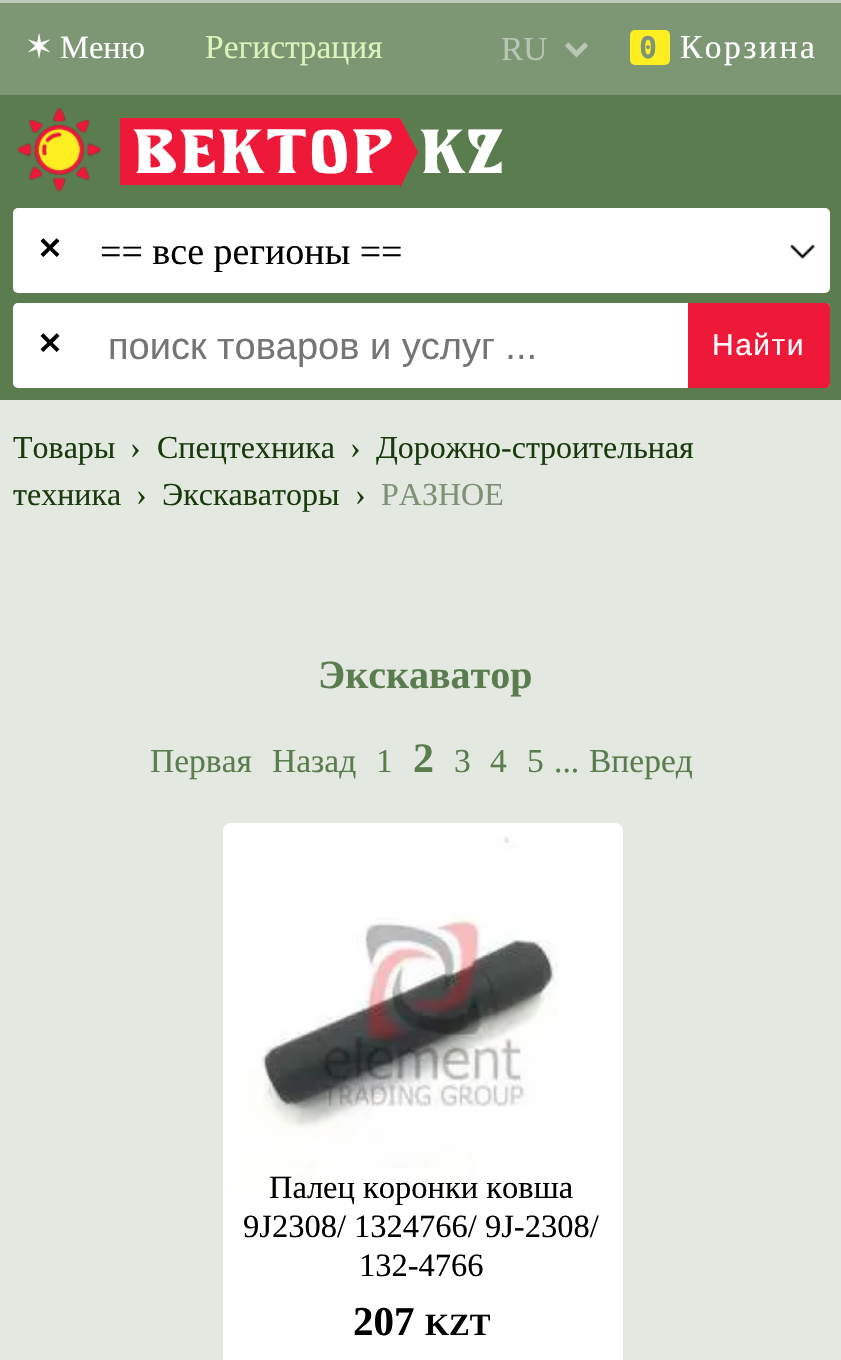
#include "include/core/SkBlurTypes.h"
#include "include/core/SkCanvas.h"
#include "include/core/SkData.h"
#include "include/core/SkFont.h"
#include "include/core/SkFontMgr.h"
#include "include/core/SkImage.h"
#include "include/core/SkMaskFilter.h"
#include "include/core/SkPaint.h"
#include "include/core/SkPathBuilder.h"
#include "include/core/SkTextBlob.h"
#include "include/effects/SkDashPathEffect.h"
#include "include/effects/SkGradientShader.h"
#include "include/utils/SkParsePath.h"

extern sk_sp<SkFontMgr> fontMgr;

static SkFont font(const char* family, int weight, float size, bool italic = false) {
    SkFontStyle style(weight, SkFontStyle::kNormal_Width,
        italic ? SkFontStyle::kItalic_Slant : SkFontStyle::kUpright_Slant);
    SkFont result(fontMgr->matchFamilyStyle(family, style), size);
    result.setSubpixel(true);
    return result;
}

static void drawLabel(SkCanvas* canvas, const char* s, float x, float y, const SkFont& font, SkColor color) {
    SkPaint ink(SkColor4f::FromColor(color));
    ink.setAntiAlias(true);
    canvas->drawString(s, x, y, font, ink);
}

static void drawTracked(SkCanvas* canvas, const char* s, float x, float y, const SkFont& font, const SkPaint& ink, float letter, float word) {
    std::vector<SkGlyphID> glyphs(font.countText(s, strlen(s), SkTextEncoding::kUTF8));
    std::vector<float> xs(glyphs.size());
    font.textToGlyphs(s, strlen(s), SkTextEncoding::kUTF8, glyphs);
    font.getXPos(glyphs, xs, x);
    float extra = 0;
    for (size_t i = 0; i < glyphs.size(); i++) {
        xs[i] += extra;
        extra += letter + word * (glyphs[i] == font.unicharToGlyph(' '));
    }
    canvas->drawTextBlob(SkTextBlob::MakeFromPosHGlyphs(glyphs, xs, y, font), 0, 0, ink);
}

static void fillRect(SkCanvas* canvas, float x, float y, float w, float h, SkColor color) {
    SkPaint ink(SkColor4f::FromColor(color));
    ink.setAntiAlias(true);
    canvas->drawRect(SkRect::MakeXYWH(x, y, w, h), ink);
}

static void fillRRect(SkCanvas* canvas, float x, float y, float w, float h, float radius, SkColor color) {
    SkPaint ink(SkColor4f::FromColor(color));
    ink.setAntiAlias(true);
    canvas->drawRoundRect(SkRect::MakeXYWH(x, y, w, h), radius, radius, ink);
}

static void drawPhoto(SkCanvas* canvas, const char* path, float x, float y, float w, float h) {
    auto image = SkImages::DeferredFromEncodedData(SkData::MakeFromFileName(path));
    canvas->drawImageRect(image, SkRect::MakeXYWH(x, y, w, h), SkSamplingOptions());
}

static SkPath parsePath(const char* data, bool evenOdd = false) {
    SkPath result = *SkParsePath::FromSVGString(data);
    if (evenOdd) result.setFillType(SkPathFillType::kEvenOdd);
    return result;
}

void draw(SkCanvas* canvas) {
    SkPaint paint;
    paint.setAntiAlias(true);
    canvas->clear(0xFFBECBBA);
    fillRect(canvas, 0, 3, 841, 92, 0xFF7D9774);
    SkFont font1 = font("DejaVu Sans", 400, 33.5f);
    drawLabel(canvas, "✶", 25, 58, font1, 0xFFFFFFFF);
    SkFont font2 = font("Liberation Serif", 400, 32.5f);
    drawLabel(canvas, "Меню", 60, 58, font2, 0xFFFFFFFF);
    SkFont font3 = font("Liberation Serif", 400, 33.5f);
    drawLabel(canvas, "Регистрация", 205, 58, font3, 0xFFDDF3BC);
    paint.setStroke(true);
    paint.setStrokeWidth(5);
    paint.setColor(0xFFB8C6B3);
    canvas->drawPath(parsePath("M566.5 44L576.5 54L586.5 44"), paint);
    drawLabel(canvas, "RU", 501, 60, font3, 0xFFB8C6B3);
    fillRRect(canvas, 630, 30, 40, 35, 5, 0xFFFDEE21);
    SkFont font4 = font("DejaVu Sans Mono", 700, 30);
    paint.setStroke(false);
    paint.setColor(0xFF7F9278);
    drawTracked(canvas, "0", 639, 58, font4, paint, 2.5f, 0);
    paint.setColor(0xFFFFFFFF);
    drawTracked(canvas, "Корзина", 680, 58, font3, paint, 2.5f, 0);
    fillRect(canvas, 0, 95, 841, 305, 0xFF5B7C4F);
    drawPhoto(canvas, "assets/img1.png", 17, 107, 85, 85);
    fillRect(canvas, 120, 118, 280, 67, 0xFFEE1839);
    SkFont font5 = font("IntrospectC", 400, 65);
    drawTracked(canvas, "ВЕКТОР", 133, 173, font5, paint, 2.5f, 0);
    paint.setColor(0xFFEE1839);
    canvas->drawPath(parsePath("M400 188V118L418 152Z"), paint);
    paint.setColor(0xFFFFFFFF);
    drawTracked(canvas, "KZ", 420, 173, font5, paint, 2.5f, 0);
    fillRRect(canvas, 13, 208, 817, 85, 5, 0xFFFFFFFF);
    SkFont font6 = font("DejaVu Sans", 700, 30);
    drawLabel(canvas, "✕", 37, 259, font6, 0xFF000000);
    drawPhoto(canvas, "assets/img2.png", 790, 244, 26, 15);
    SkFont font7 = font("Liberation Serif", 400, 38);
    drawLabel(canvas, "== все регионы ==", 100, 264, font7, 0xFF000000);
    fillRRect(canvas, 13, 303, 817, 85, 5, 0xFFFFFFFF);
    drawLabel(canvas, "✕", 37, 354, font6, 0xFF000000);
    SkFont font8 = font("Liberation Sans", 400, 38);
    drawLabel(canvas, "поиск товаров и услуг ...", 108, 359, font8, 0xFF757575);
    paint.setColor(0xFFEE1839);
    canvas->drawPath(parsePath("M688 303H825C828 303 830 305 830 308V383C830 386 828 388 825 388H688Z"), paint);
    SkFont font9 = font("Liberation Sans", 400, 30);
    paint.setColor(0xFFFFFFFF);
    drawTracked(canvas, "Найти", 712, 355, font9, paint, 1.5f, 0);
    fillRect(canvas, 0, 400, 841, 960, 0xFFE3E9E1);
    SkFont font10 = font("Liberation Serif", 400, 32);
    drawLabel(canvas, "Товары", 13, 458, font10, 0xFF1A3A0E);
    drawLabel(canvas, "›", 130, 458, font10, 0xFF1A3A0E);
    drawLabel(canvas, "Спецтехника", 157, 458, font10, 0xFF1A3A0E);
    drawLabel(canvas, "›", 350, 458, font10, 0xFF1A3A0E);
    drawLabel(canvas, "Дорожно-строительная", 376, 458, font10, 0xFF1A3A0E);
    drawLabel(canvas, "техника", 13, 505, font10, 0xFF1A3A0E);
    drawLabel(canvas, "›", 136, 505, font10, 0xFF1A3A0E);
    drawLabel(canvas, "Экскаваторы", 162, 505, font10, 0xFF1A3A0E);
    drawLabel(canvas, "›", 355, 505, font10, 0xFF1A3A0E);
    drawLabel(canvas, "РАЗНОЕ", 381, 505, font10, 0xFF7F9278);
    SkFont font11 = font("Liberation Serif", 700, 40);
    drawLabel(canvas, "Экскаватор", 318, 688, font11, 0xFF5B7C4F);
    drawLabel(canvas, "Первая", 150, 772, font3, 0xFF5B7C4F);
    drawLabel(canvas, "Назад", 272, 772, font3, 0xFF5B7C4F);
    drawLabel(canvas, "1", 376, 772, font3, 0xFF5B7C4F);
    SkFont font12 = font("Liberation Serif", 700, 42);
    drawLabel(canvas, "2", 413, 772, font12, 0xFF5B7C4F);
    drawLabel(canvas, "3", 454, 772, font3, 0xFF5B7C4F);
    drawLabel(canvas, "4", 490, 772, font3, 0xFF5B7C4F);
    drawLabel(canvas, "5", 527, 772, font3, 0xFF5B7C4F);
    drawLabel(canvas, "...", 554, 772, font3, 0xFF5B7C4F);
    drawLabel(canvas, "Вперед", 589, 772, font3, 0xFF5B7C4F);
    fillRRect(canvas, 223, 823, 400, 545, 8, 0xFFFFFFFF);
    drawPhoto(canvas, "assets/img3.png", 235, 835, 323, 358);
    fillRect(canvas, 235, 1168, 233, 25, 0xABFFFFFF);
    drawLabel(canvas, "Палец коронки ковша", 269, 1198, font2, 0xFF000000);
    drawLabel(canvas, "9J2308/ 1324766/ 9J-2308/", 243, 1237, font2, 0xFF000000);
    drawLabel(canvas, "132-4766", 359, 1276, font2, 0xFF000000);
    SkFont font13 = font("Liberation Serif", 700, 41);
    drawLabel(canvas, "207", 353, 1335, font13, 0xFF000000);
    SkFont font14 = font("Liberation Serif", 700, 31);
    drawLabel(canvas, "KZT", 425, 1335, font14, 0xFF000000);
}
